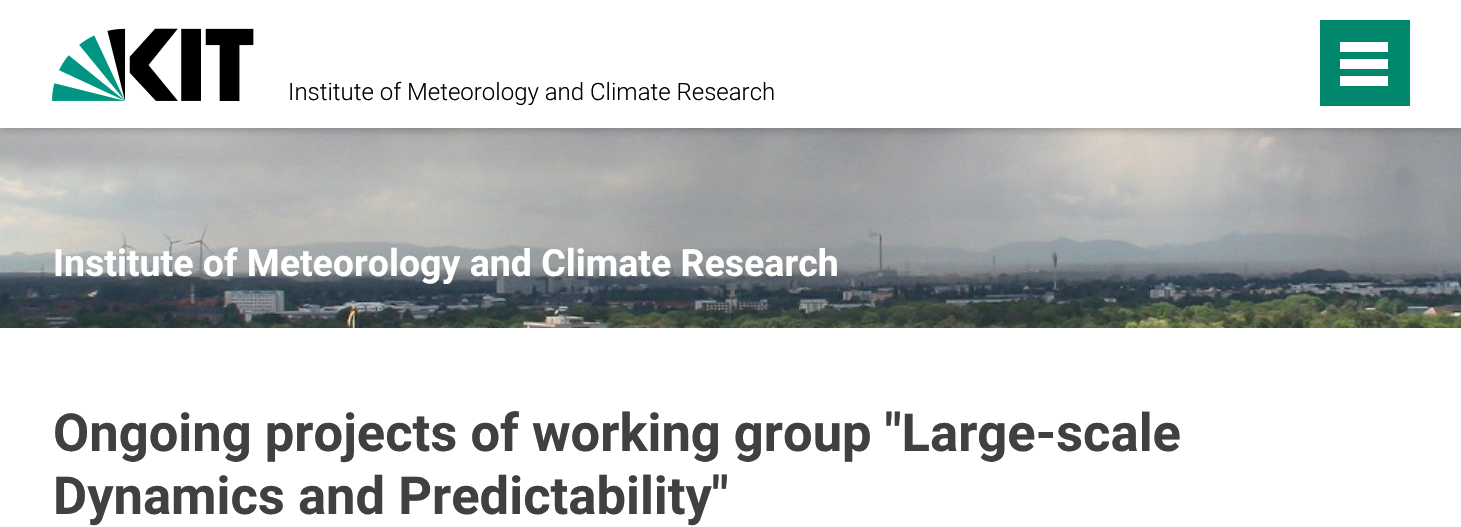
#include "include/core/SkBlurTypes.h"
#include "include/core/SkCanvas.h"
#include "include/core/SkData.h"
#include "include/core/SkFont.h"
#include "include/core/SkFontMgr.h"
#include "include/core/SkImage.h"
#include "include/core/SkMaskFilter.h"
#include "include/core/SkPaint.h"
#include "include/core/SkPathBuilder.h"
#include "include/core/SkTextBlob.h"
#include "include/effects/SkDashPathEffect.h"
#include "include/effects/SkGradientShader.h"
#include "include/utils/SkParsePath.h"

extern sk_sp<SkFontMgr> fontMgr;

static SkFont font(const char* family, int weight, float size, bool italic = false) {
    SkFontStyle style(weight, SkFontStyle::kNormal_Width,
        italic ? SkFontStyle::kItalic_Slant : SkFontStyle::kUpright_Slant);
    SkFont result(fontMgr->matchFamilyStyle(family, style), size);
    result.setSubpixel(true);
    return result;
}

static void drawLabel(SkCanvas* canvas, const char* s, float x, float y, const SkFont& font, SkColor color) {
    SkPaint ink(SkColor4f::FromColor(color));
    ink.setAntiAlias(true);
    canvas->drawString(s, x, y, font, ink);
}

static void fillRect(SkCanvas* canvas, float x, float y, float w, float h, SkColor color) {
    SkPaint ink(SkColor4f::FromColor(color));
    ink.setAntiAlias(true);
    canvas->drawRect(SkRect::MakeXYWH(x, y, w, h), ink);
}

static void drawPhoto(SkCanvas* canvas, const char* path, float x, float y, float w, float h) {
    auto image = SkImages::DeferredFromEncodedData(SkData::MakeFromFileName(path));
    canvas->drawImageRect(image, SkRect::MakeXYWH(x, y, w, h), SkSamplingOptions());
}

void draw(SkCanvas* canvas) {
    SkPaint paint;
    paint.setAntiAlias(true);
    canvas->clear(0xFFFFFFFF);
    drawPhoto(canvas, "assets/img2.png", 0, 128, 1461, 200);
    canvas->save();
    canvas->clipRect(SkRect::MakeXYWH(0, 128, 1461, 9));
    paint.setColor(0x80404040);
    paint.setMaskFilter(SkMaskFilter::MakeBlur(kNormal_SkBlurStyle, 5));
    canvas->drawRect(SkRect::MakeXYWH(0, 0, 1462, 128), paint);
    paint.setMaskFilter(nullptr);
    canvas->restore();
    drawPhoto(canvas, "assets/img1.png", 52, 28, 202, 73);
    SkFont font1 = font("Roboto", 300, 24);
    drawLabel(canvas, "Institute of Meteorology and Climate Research", 288, 100, font1, 0xFF000000);
    fillRect(canvas, 1320, 20, 90, 86, 0xFF00876C);
    fillRect(canvas, 1340, 76, 48, 10, 0xFFFFFFFF);
    fillRect(canvas, 1340, 59, 48, 10, 0xFFFFFFFF);
    fillRect(canvas, 1340, 42, 48, 10, 0xFFFFFFFF);
    SkFont font2 = font("Roboto", 700, 37.5f);
    drawLabel(canvas, "Institute of Meteorology and Climate Research", 53, 276, font2, 0xFFFFFFFF);
    SkFont font3 = font("Roboto", 700, 52.5f);
    drawLabel(canvas, "Ongoing projects of working group \"Large-scale", 53, 451, font3, 0xFF404040);
    drawLabel(canvas, "Dynamics and Predictability\"", 53, 514, font3, 0xFF404040);
}
